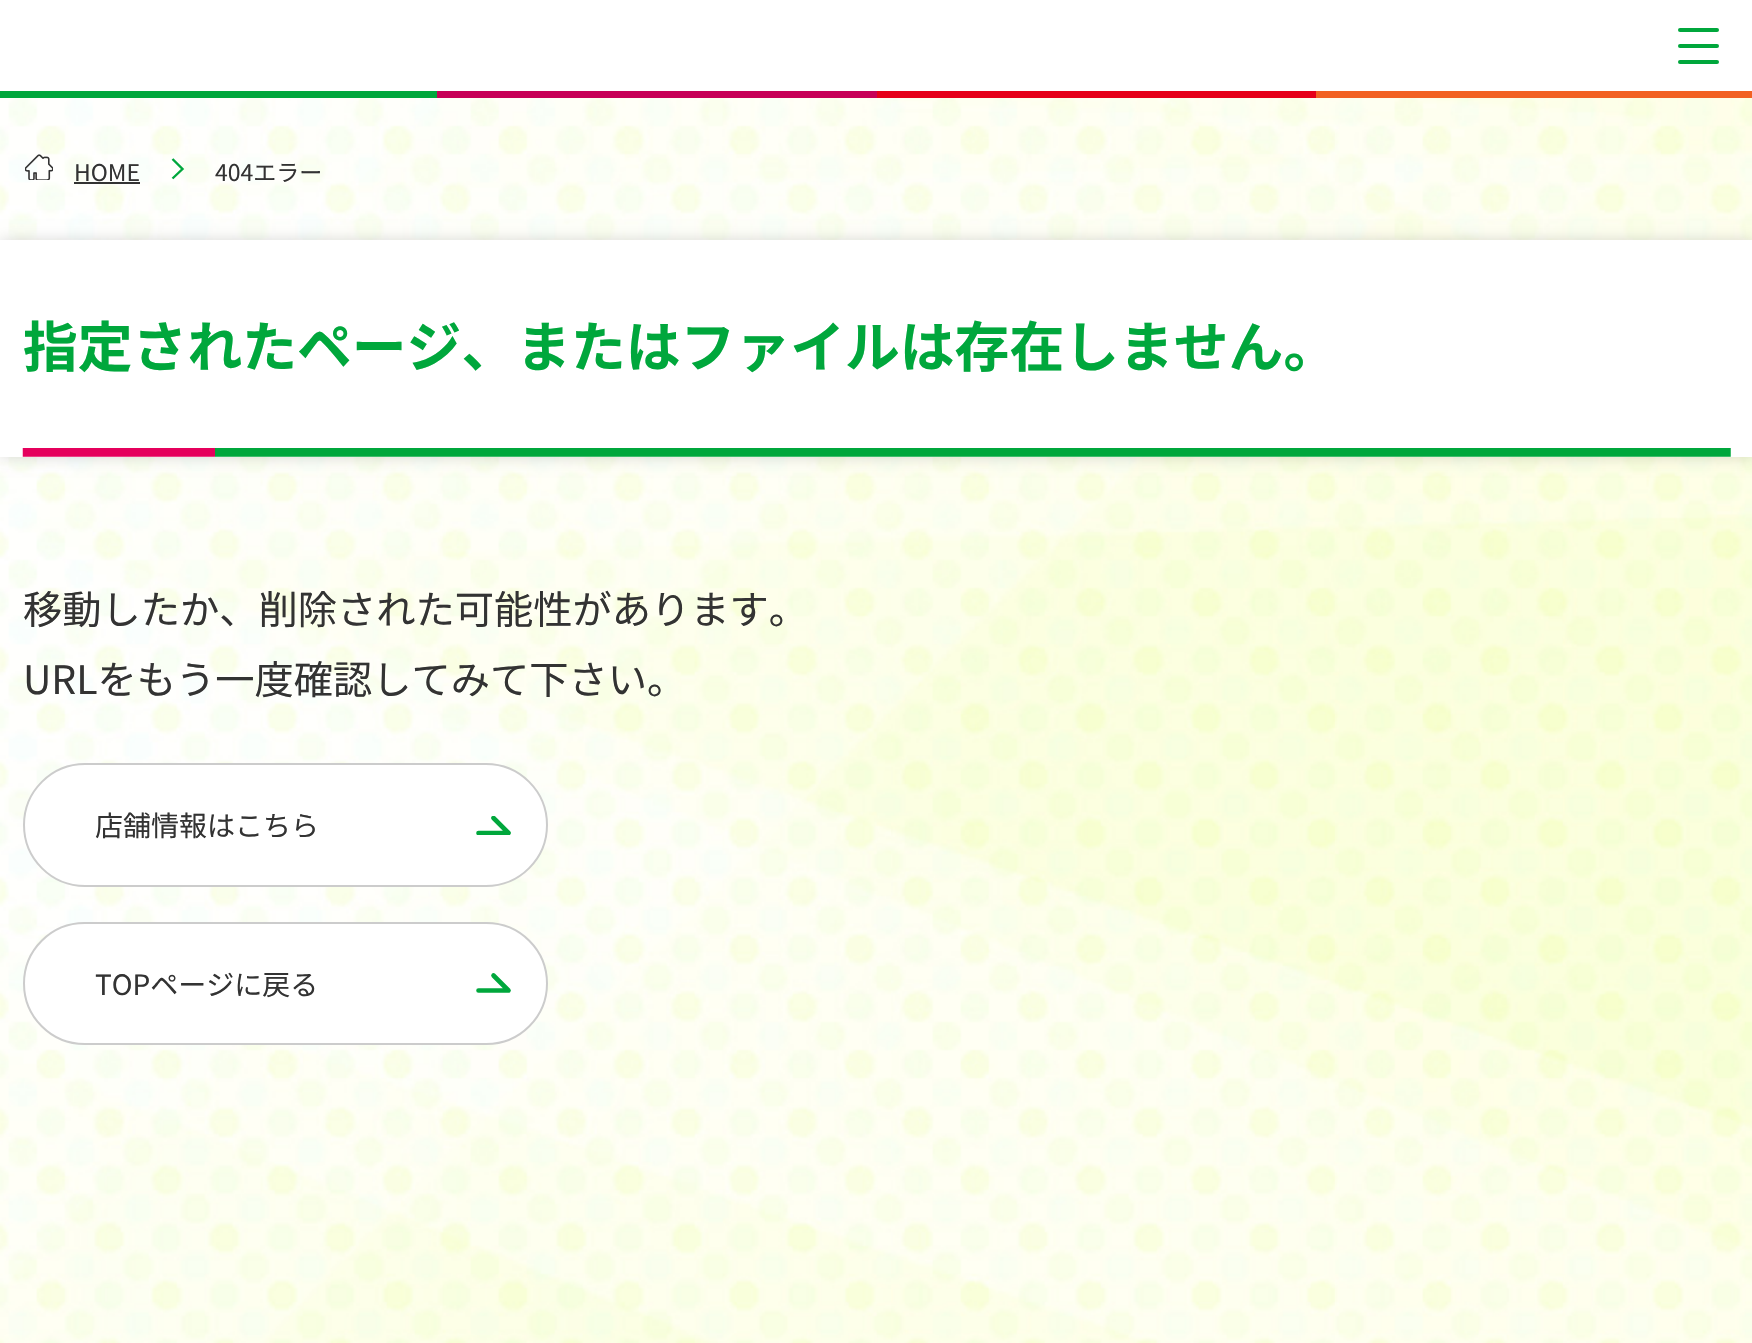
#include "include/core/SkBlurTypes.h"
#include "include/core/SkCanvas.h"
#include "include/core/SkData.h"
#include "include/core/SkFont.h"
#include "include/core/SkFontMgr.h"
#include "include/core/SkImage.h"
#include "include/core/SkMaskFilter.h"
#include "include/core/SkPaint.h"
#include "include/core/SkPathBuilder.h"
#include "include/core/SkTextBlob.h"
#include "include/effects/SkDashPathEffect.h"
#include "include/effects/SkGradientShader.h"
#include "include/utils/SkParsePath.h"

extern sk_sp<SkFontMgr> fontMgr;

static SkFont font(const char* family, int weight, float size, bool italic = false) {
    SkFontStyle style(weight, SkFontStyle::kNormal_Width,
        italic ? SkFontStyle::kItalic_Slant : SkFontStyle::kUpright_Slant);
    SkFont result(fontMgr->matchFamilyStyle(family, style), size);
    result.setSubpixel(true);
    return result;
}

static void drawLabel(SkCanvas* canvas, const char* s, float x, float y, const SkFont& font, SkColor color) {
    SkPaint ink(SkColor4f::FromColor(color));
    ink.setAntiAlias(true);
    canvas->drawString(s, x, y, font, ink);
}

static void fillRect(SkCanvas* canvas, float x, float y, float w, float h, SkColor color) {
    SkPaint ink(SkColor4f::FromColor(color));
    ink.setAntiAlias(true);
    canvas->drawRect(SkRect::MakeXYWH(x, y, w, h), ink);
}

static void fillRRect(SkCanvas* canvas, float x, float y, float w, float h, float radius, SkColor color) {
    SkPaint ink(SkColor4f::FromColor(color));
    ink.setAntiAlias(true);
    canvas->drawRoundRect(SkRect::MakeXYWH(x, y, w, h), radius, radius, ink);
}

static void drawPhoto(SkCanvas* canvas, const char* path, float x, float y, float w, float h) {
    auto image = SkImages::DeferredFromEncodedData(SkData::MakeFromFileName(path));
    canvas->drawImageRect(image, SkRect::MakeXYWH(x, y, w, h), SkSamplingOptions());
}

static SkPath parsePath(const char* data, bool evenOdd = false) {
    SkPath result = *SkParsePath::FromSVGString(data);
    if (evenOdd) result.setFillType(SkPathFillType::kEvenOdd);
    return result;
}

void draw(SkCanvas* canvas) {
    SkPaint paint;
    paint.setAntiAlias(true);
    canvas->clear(0xFFFFFFFF);
    drawPhoto(canvas, "assets/img1.png", 0, 98, 1752, 1245);
    drawPhoto(canvas, "assets/img2.png", 0, 91, 1752, 7);
    fillRRect(canvas, 1678, 28, 41, 4, 2, 0xFF00A73C);
    fillRRect(canvas, 1678, 44, 41, 4, 2, 0xFF00A73C);
    fillRRect(canvas, 1678, 60, 41, 4, 2, 0xFF00A73C);
    drawPhoto(canvas, "assets/img3.png", 25, 154, 28, 26);
    SkFont font1 = font("Noto Sans JP", 400, 23);
    drawLabel(canvas, "HOME", 74, 181, font1, 0xFF333333);
    fillRect(canvas, 74, 182, 66, 2, 0xFF333333);
    paint.setStroke(true);
    paint.setStrokeWidth(2.4f);
    paint.setColor(0xFF00A73C);
    canvas->drawPath(parsePath("M172.5 178.5L182.5 169L172.5 159"), paint);
    drawLabel(canvas, "404エラー", 215, 181, font1, 0xFF333333);
    paint.setStroke(false);
    paint.setColor(0x26000000);
    paint.setMaskFilter(SkMaskFilter::MakeBlur(kNormal_SkBlurStyle, 7));
    canvas->drawRect(SkRect::MakeXYWH(0, 240, 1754, 217), paint);
    paint.setMaskFilter(nullptr);
    fillRect(canvas, 0, 240, 1752, 217, 0xFFFFFFFF);
    drawPhoto(canvas, "assets/img4.png", 22, 448, 1709, 9);
    SkFont font2 = font("Noto Sans JP", 700, 54.8f);
    drawLabel(canvas, "指定されたページ、またはファイルは存在しません。", 23, 367, font2, 0xFF00A73C);
    SkFont font3 = font("Noto Sans JP", 400, 39.25f);
    drawLabel(canvas, "移動したか、削除された可能性があります。", 23, 624, font3, 0xFF333333);
    drawLabel(canvas, "URLをもう一度確認してみて下さい。", 23, 694, font3, 0xFF333333);
    paint.setColor(0xFFFFFFFF);
    canvas->drawRoundRect(SkRect::MakeXYWH(24, 764, 523, 122), 61, 61, paint);
    paint.setStroke(true);
    paint.setStrokeWidth(2);
    paint.setColor(0xFFCCCCCC);
    canvas->drawRoundRect(SkRect::MakeXYWH(24, 764, 523, 122), 61, 61, paint);
    SkFont font4 = font("Noto Sans JP", 400, 28);
    drawLabel(canvas, "店舗情報はこちら", 95, 836, font4, 0xFF333333);
    canvas->save();
    canvas->clipRect(SkRect::MakeXYWH(476, 816, 35, 19));
    paint.setStrokeWidth(4.6f);
    paint.setStrokeCap(SkPaint::kRound_Cap);
    paint.setStrokeJoin(SkPaint::kRound_Join);
    paint.setColor(0xFF00A73C);
    canvas->drawPath(parsePath("M493.5 818L508.5 833H478.5"), paint);
    canvas->restore();
    paint.setStroke(false);
    paint.setColor(0xFFFFFFFF);
    canvas->drawRoundRect(SkRect::MakeXYWH(24, 923, 523, 121), 60.5f, 60.5f, paint);
    paint.setStroke(true);
    paint.setStrokeWidth(2);
    paint.setStrokeCap(SkPaint::kButt_Cap);
    paint.setStrokeJoin(SkPaint::kMiter_Join);
    paint.setColor(0xFFCCCCCC);
    canvas->drawRoundRect(SkRect::MakeXYWH(24, 923, 523, 121), 60.5f, 60.5f, paint);
    drawLabel(canvas, "TOPページに戻る", 95, 995, font4, 0xFF333333);
    paint.setStrokeWidth(4.6f);
    paint.setStrokeCap(SkPaint::kRound_Cap);
    paint.setStrokeJoin(SkPaint::kRound_Join);
    paint.setColor(0xFF00A73C);
    canvas->drawPath(parsePath("M493.5 975.5L508.5 990.5H478.5"), paint);
}
